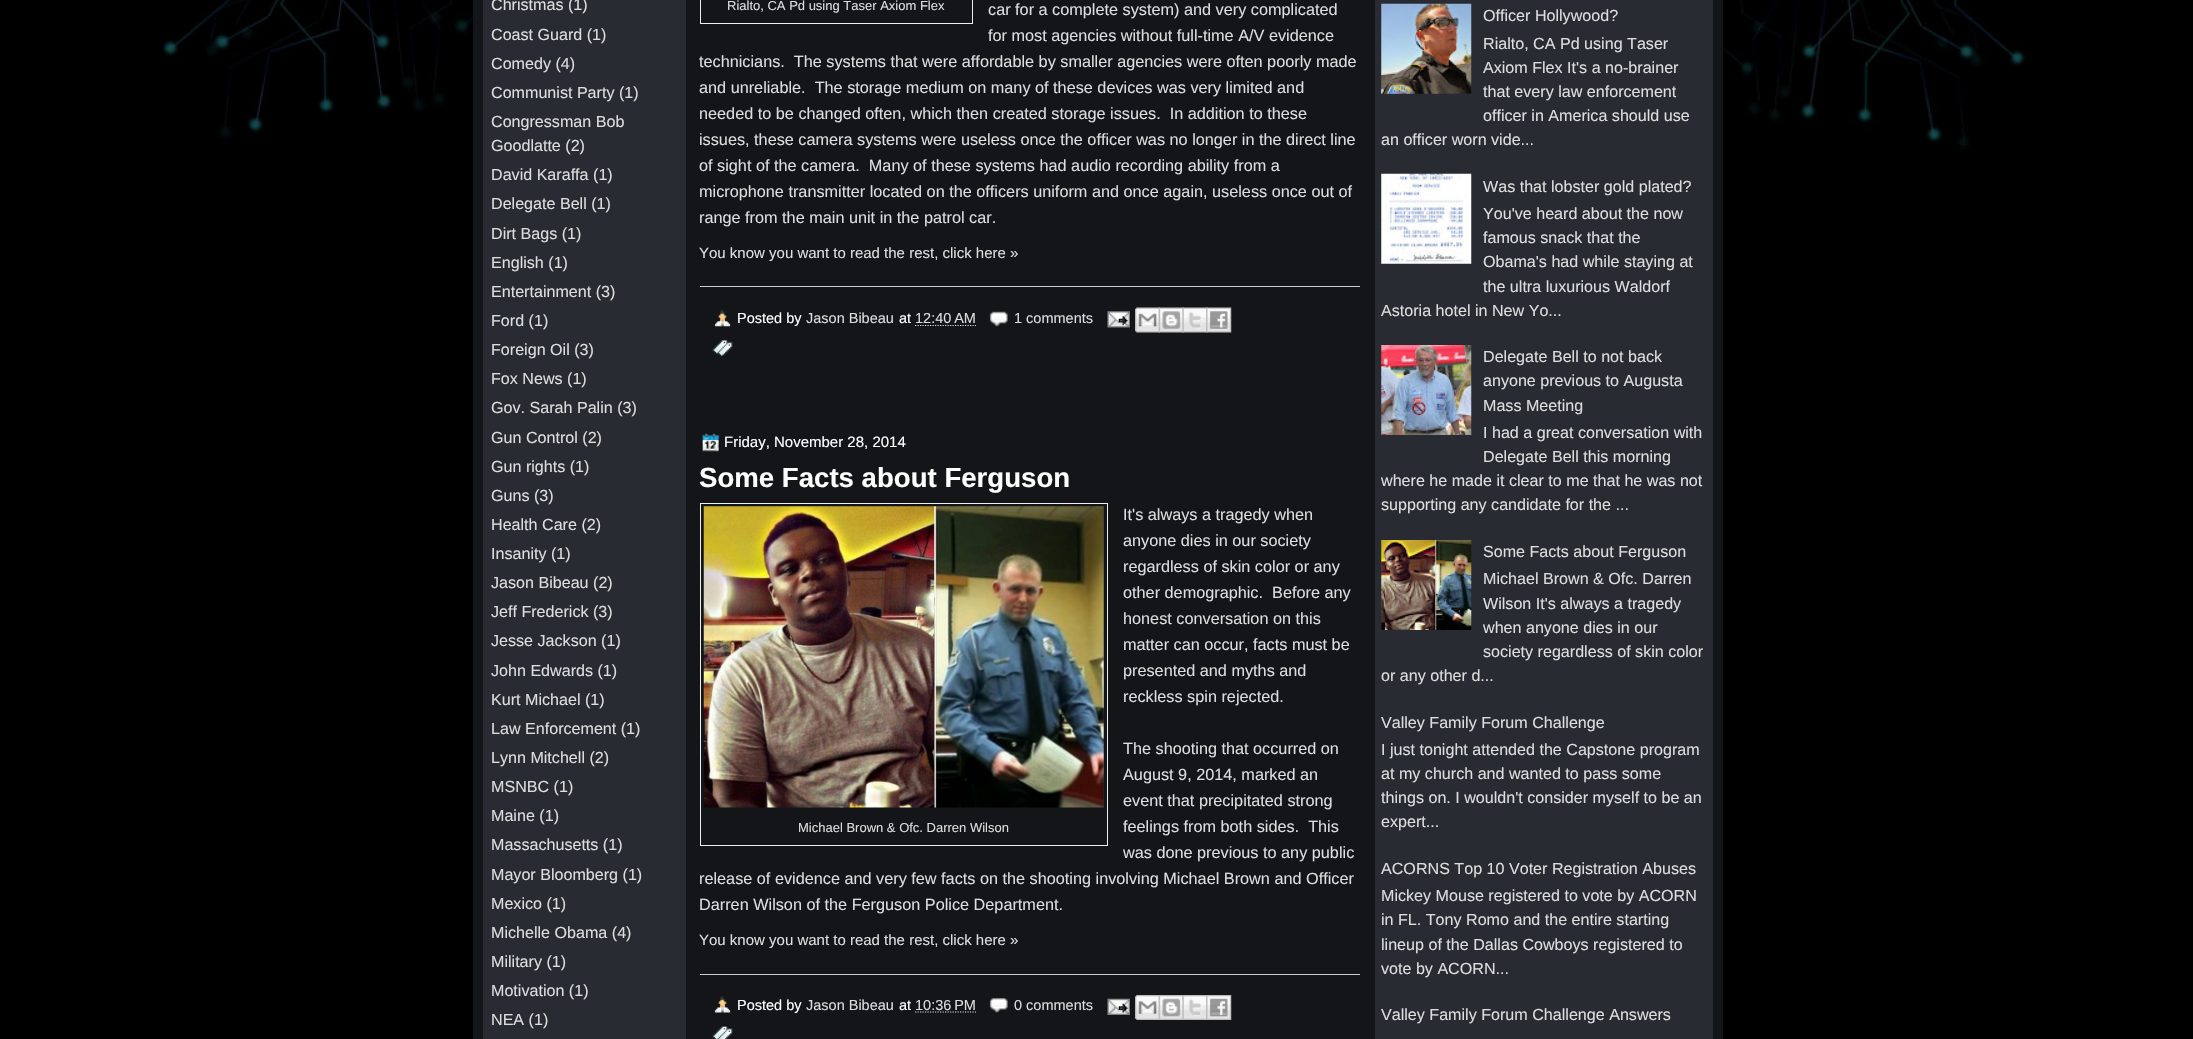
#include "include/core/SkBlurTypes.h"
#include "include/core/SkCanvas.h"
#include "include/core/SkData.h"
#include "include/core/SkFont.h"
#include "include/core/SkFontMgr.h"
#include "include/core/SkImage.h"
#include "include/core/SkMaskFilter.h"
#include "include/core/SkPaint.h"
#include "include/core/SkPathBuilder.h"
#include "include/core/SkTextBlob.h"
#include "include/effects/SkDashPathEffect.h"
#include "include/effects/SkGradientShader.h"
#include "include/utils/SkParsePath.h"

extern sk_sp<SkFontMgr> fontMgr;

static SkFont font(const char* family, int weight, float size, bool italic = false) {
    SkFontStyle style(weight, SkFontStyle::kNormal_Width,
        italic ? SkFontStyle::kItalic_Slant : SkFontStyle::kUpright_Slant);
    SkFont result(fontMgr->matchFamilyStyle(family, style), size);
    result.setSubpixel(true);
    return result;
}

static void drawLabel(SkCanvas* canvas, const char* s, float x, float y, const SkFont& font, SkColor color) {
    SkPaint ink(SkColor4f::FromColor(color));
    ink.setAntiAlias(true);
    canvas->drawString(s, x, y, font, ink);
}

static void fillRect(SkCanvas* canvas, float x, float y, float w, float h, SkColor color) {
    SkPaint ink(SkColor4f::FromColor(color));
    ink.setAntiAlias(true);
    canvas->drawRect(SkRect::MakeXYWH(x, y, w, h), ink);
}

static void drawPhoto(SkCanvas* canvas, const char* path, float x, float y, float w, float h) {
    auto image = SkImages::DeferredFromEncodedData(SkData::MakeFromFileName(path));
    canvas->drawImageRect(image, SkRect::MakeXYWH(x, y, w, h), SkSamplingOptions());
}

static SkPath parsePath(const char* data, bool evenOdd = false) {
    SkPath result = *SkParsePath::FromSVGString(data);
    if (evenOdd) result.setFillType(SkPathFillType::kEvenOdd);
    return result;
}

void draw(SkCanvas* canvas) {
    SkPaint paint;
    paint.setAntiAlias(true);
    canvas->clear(0xFF000000);
    drawPhoto(canvas, "assets/img1.png", 162, 0, 1864, 152);
    fillRect(canvas, 473, 0, 1250, 1039, 0xFF131518);
    fillRect(canvas, 483, 0, 203, 1039, 0xFF282C32);
    SkFont font1 = font("Liberation Sans", 400, 16.1f);
    drawLabel(canvas, "Christmas (1)", 491, 10, font1, 0xFFDDDDDD);
    drawLabel(canvas, "Coast Guard (1)", 491, 40, font1, 0xFFDDDDDD);
    drawLabel(canvas, "Comedy (4)", 491, 69, font1, 0xFFDDDDDD);
    drawLabel(canvas, "Communist Party (1)", 491, 98, font1, 0xFFDDDDDD);
    drawLabel(canvas, "Congressman Bob", 491, 127, font1, 0xFFDDDDDD);
    drawLabel(canvas, "Goodlatte (2)", 491, 151, font1, 0xFFDDDDDD);
    drawLabel(canvas, "David Karaffa (1)", 491, 180, font1, 0xFFDDDDDD);
    drawLabel(canvas, "Delegate Bell (1)", 491, 209, font1, 0xFFDDDDDD);
    drawLabel(canvas, "Dirt Bags (1)", 491, 239, font1, 0xFFDDDDDD);
    drawLabel(canvas, "English (1)", 491, 268, font1, 0xFFDDDDDD);
    drawLabel(canvas, "Entertainment (3)", 491, 297, font1, 0xFFDDDDDD);
    drawLabel(canvas, "Ford (1)", 491, 326, font1, 0xFFDDDDDD);
    drawLabel(canvas, "Foreign Oil (3)", 491, 355, font1, 0xFFDDDDDD);
    drawLabel(canvas, "Fox News (1)", 491, 384, font1, 0xFFDDDDDD);
    drawLabel(canvas, "Gov. Sarah Palin (3)", 491, 413, font1, 0xFFDDDDDD);
    drawLabel(canvas, "Gun Control (2)", 491, 443, font1, 0xFFDDDDDD);
    drawLabel(canvas, "Gun rights (1)", 491, 472, font1, 0xFFDDDDDD);
    drawLabel(canvas, "Guns (3)", 491, 501, font1, 0xFFDDDDDD);
    drawLabel(canvas, "Health Care (2)", 491, 530, font1, 0xFFDDDDDD);
    drawLabel(canvas, "Insanity (1)", 491, 559, font1, 0xFFDDDDDD);
    drawLabel(canvas, "Jason Bibeau (2)", 491, 588, font1, 0xFFDDDDDD);
    drawLabel(canvas, "Jeff Frederick (3)", 491, 617, font1, 0xFFDDDDDD);
    drawLabel(canvas, "Jesse Jackson (1)", 491, 646, font1, 0xFFDDDDDD);
    drawLabel(canvas, "John Edwards (1)", 491, 676, font1, 0xFFDDDDDD);
    drawLabel(canvas, "Kurt Michael (1)", 491, 705, font1, 0xFFDDDDDD);
    drawLabel(canvas, "Law Enforcement (1)", 491, 734, font1, 0xFFDDDDDD);
    drawLabel(canvas, "Lynn Mitchell (2)", 491, 763, font1, 0xFFDDDDDD);
    drawLabel(canvas, "MSNBC (1)", 491, 792, font1, 0xFFDDDDDD);
    drawLabel(canvas, "Maine (1)", 491, 821, font1, 0xFFDDDDDD);
    drawLabel(canvas, "Massachusetts (1)", 491, 850, font1, 0xFFDDDDDD);
    drawLabel(canvas, "Mayor Bloomberg (1)", 491, 880, font1, 0xFFDDDDDD);
    drawLabel(canvas, "Mexico (1)", 491, 909, font1, 0xFFDDDDDD);
    drawLabel(canvas, "Michelle Obama (4)", 491, 938, font1, 0xFFDDDDDD);
    drawLabel(canvas, "Military (1)", 491, 967, font1, 0xFFDDDDDD);
    drawLabel(canvas, "Motivation (1)", 491, 996, font1, 0xFFDDDDDD);
    drawLabel(canvas, "NEA (1)", 491, 1025, font1, 0xFFDDDDDD);
    paint.setStroke(true);
    paint.setStrokeWidth(1);
    paint.setColor(0xFFEEEEEE);
    canvas->drawRect(SkRect::MakeXYWH(700.5f, -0.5f, 272, 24), paint);
    SkFont font2 = font("Liberation Sans", 400, 13);
    drawLabel(canvas, "Rialto, CA Pd using Taser Axiom Flex", 727, 10, font2, 0xFFDDDDDD);
    SkFont font3 = font("Liberation Sans", 400, 16.25f);
    drawLabel(canvas, "car for a complete system) and very complicated", 988, 15, font3, 0xFFDDDDDD);
    drawLabel(canvas, "for most agencies without full-time A/V evidence", 988, 41, font3, 0xFFDDDDDD);
    drawLabel(canvas, "technicians.  The systems that were affordable by smaller agencies were often poorly made", 699, 67, font3, 0xFFDDDDDD);
    drawLabel(canvas, "and unreliable.  The storage medium on many of these devices was very limited and", 699, 93, font3, 0xFFDDDDDD);
    drawLabel(canvas, "needed to be changed often, which then created storage issues.  In addition to these", 699, 119, font3, 0xFFDDDDDD);
    drawLabel(canvas, "issues, these camera systems were useless once the officer was no longer in the direct line", 699, 145, font3, 0xFFDDDDDD);
    drawLabel(canvas, "of sight of the camera.  Many of these systems had audio recording ability from a", 699, 171, font3, 0xFFDDDDDD);
    drawLabel(canvas, "microphone transmitter located on the officers uniform and once again, useless once out of", 699, 197, font3, 0xFFDDDDDD);
    drawLabel(canvas, "range from the main unit in the patrol car.", 699, 223, font3, 0xFFDDDDDD);
    SkFont font4 = font("Liberation Sans", 400, 15);
    drawLabel(canvas, "You know you want to read the rest, click here »", 699, 258, font4, 0xFFDDDDDD);
    fillRect(canvas, 700, 286, 660, 1, 0xFFCCCCCC);
    drawPhoto(canvas, "assets/img2.png", 714, 310, 17, 17);
    SkFont font5 = font("Liberation Sans", 400, 14.5f);
    drawLabel(canvas, "Posted by", 737, 323, font5, 0xFFFFFFFF);
    drawLabel(canvas, "Jason Bibeau", 806, 323, font5, 0xFFDDDDDD);
    drawLabel(canvas, "at", 899, 323, font5, 0xFFFFFFFF);
    drawLabel(canvas, "12:40 AM", 915, 323, font5, 0xFFDDDDDD);
    paint.setStrokeWidth(1.2f);
    paint.setColor(0xFFDDDDDD);
    paint.setPathEffect(SkDashPathEffect::Make({{1.25f, 1.25f}}, 0));
    canvas->drawPath(parsePath("M915 325.5H976"), paint);
    paint.setPathEffect(nullptr);
    drawPhoto(canvas, "assets/img3.png", 989, 311, 19, 16);
    drawLabel(canvas, "1 comments", 1014, 323, font5, 0xFFDDDDDD);
    drawPhoto(canvas, "assets/img4.png", 1107, 311, 23, 17);
    drawPhoto(canvas, "assets/img5.png", 1135, 307, 25, 26);
    drawPhoto(canvas, "assets/img6.png", 1158, 307, 26, 26);
    drawPhoto(canvas, "assets/img7.png", 1182, 307, 26, 26);
    drawPhoto(canvas, "assets/img8.png", 1206, 307, 26, 26);
    drawPhoto(canvas, "assets/img9.png", 712, 340, 21, 16);
    drawPhoto(canvas, "assets/img10.png", 701, 433, 19, 19);
    drawLabel(canvas, "Friday, November 28, 2014", 724, 447, font4, 0xFFFFFFFF);
    SkFont font6 = font("Liberation Sans", 700, 27.6f);
    drawLabel(canvas, "Some Facts about Ferguson", 699, 487, font6, 0xFFFFFFFF);
    drawLabel(canvas, "It's always a tragedy when", 1123, 520, font3, 0xFFDDDDDD);
    drawLabel(canvas, "anyone dies in our society", 1123, 546, font3, 0xFFDDDDDD);
    drawLabel(canvas, "regardless of skin color or any", 1123, 572, font3, 0xFFDDDDDD);
    drawLabel(canvas, "other demographic.  Before any", 1123, 598, font3, 0xFFDDDDDD);
    drawLabel(canvas, "honest conversation on this", 1123, 624, font3, 0xFFDDDDDD);
    drawLabel(canvas, "matter can occur, facts must be", 1123, 650, font3, 0xFFDDDDDD);
    drawLabel(canvas, "presented and myths and", 1123, 676, font3, 0xFFDDDDDD);
    drawLabel(canvas, "reckless spin rejected.", 1123, 702, font3, 0xFFDDDDDD);
    drawLabel(canvas, "The shooting that occurred on", 1123, 754, font3, 0xFFDDDDDD);
    drawLabel(canvas, "August 9, 2014, marked an", 1123, 780, font3, 0xFFDDDDDD);
    drawLabel(canvas, "event that precipitated strong", 1123, 806, font3, 0xFFDDDDDD);
    paint.setStrokeWidth(1);
    paint.setColor(0xFFEEEEEE);
    canvas->drawRect(SkRect::MakeXYWH(700.5f, 503.5f, 407, 342), paint);
    drawPhoto(canvas, "assets/img11.png", 703, 506, 401, 302);
    drawLabel(canvas, "Michael Brown & Ofc. Darren Wilson", 798, 832, font2, 0xFFDDDDDD);
    drawLabel(canvas, "feelings from both sides.  This", 1123, 832, font3, 0xFFDDDDDD);
    drawLabel(canvas, "was done previous to any public", 1123, 858, font3, 0xFFDDDDDD);
    drawLabel(canvas, "release of evidence and very few facts on the shooting involving Michael Brown and Officer", 699, 884, font3, 0xFFDDDDDD);
    drawLabel(canvas, "Darren Wilson of the Ferguson Police Department.", 699, 910, font3, 0xFFDDDDDD);
    drawLabel(canvas, "You know you want to read the rest, click here »", 699, 945, font4, 0xFFDDDDDD);
    fillRect(canvas, 700, 974, 660, 1, 0xFFCCCCCC);
    drawPhoto(canvas, "assets/img12.png", 714, 996, 17, 17);
    drawLabel(canvas, "Posted by", 737, 1010, font5, 0xFFFFFFFF);
    drawLabel(canvas, "Jason Bibeau", 806, 1010, font5, 0xFFDDDDDD);
    drawLabel(canvas, "at", 899, 1010, font5, 0xFFFFFFFF);
    drawLabel(canvas, "10:36 PM", 915, 1010, font5, 0xFFDDDDDD);
    paint.setStrokeWidth(1.2f);
    paint.setColor(0xFFDDDDDD);
    paint.setPathEffect(SkDashPathEffect::Make({{1.25f, 1.25f}}, 0));
    canvas->drawPath(parsePath("M915 1012H976"), paint);
    paint.setPathEffect(nullptr);
    drawPhoto(canvas, "assets/img13.png", 989, 998, 19, 15);
    drawLabel(canvas, "0 comments", 1014, 1010, font5, 0xFFDDDDDD);
    drawPhoto(canvas, "assets/img14.png", 1107, 998, 23, 17);
    drawPhoto(canvas, "assets/img15.png", 1135, 995, 24, 25);
    drawPhoto(canvas, "assets/img16.png", 1158, 995, 25, 25);
    drawPhoto(canvas, "assets/img17.png", 1182, 995, 25, 25);
    drawPhoto(canvas, "assets/img18.png", 1206, 995, 26, 25);
    drawPhoto(canvas, "assets/img19.png", 712, 1026, 21, 13);
    fillRect(canvas, 1375, 0, 338, 1039, 0xFF282C32);
    drawPhoto(canvas, "assets/img20.png", 1381, 3, 91, 91);
    drawLabel(canvas, "Officer Hollywood?", 1483, 21, font1, 0xFFDDDDDD);
    drawLabel(canvas, "Rialto, CA Pd using Taser", 1483, 49, font1, 0xFFDDDDDD);
    drawLabel(canvas, "Axiom Flex It's a no-brainer", 1483, 73, font1, 0xFFDDDDDD);
    drawLabel(canvas, "that every law enforcement", 1483, 97, font1, 0xFFDDDDDD);
    drawLabel(canvas, "officer in America should use", 1483, 121, font1, 0xFFDDDDDD);
    drawLabel(canvas, "an officer worn vide...", 1381, 145, font1, 0xFFDDDDDD);
    drawPhoto(canvas, "assets/img21.png", 1381, 173, 91, 91);
    drawLabel(canvas, "Was that lobster gold plated?", 1483, 192, font1, 0xFFDDDDDD);
    drawLabel(canvas, "You've heard about the now", 1483, 219, font1, 0xFFDDDDDD);
    drawLabel(canvas, "famous snack that the", 1483, 243, font1, 0xFFDDDDDD);
    drawLabel(canvas, "Obama's had while staying at", 1483, 267, font1, 0xFFDDDDDD);
    drawLabel(canvas, "the ultra luxurious Waldorf", 1483, 292, font1, 0xFFDDDDDD);
    drawLabel(canvas, "Astoria hotel in New Yo...", 1381, 316, font1, 0xFFDDDDDD);
    drawPhoto(canvas, "assets/img22.png", 1381, 345, 91, 90);
    drawLabel(canvas, "Delegate Bell to not back", 1483, 362, font1, 0xFFDDDDDD);
    drawLabel(canvas, "anyone previous to Augusta", 1483, 386, font1, 0xFFDDDDDD);
    drawLabel(canvas, "Mass Meeting", 1483, 411, font1, 0xFFDDDDDD);
    drawLabel(canvas, "I had a great conversation with", 1483, 438, font1, 0xFFDDDDDD);
    drawLabel(canvas, "Delegate Bell this morning", 1483, 462, font1, 0xFFDDDDDD);
    drawLabel(canvas, "where he made it clear to me that he was not", 1381, 486, font1, 0xFFDDDDDD);
    drawLabel(canvas, "supporting any candidate for the ...", 1381, 510, font1, 0xFFDDDDDD);
    drawPhoto(canvas, "assets/img23.png", 1381, 540, 91, 90);
    drawLabel(canvas, "Some Facts about Ferguson", 1483, 557, font1, 0xFFDDDDDD);
    drawLabel(canvas, "Michael Brown & Ofc. Darren", 1483, 584, font1, 0xFFDDDDDD);
    drawLabel(canvas, "Wilson It's always a tragedy", 1483, 609, font1, 0xFFDDDDDD);
    drawLabel(canvas, "when anyone dies in our", 1483, 633, font1, 0xFFDDDDDD);
    drawLabel(canvas, "society regardless of skin color", 1483, 657, font1, 0xFFDDDDDD);
    drawLabel(canvas, "or any other d...", 1381, 681, font1, 0xFFDDDDDD);
    drawLabel(canvas, "Valley Family Forum Challenge", 1381, 728, font1, 0xFFDDDDDD);
    drawLabel(canvas, "I just tonight attended the Capstone program", 1381, 755, font1, 0xFFDDDDDD);
    drawLabel(canvas, "at my church and wanted to pass some", 1381, 779, font1, 0xFFDDDDDD);
    drawLabel(canvas, "things on. I wouldn't consider myself to be an", 1381, 803, font1, 0xFFDDDDDD);
    drawLabel(canvas, "expert...", 1381, 827, font1, 0xFFDDDDDD);
    drawLabel(canvas, "ACORNS Top 10 Voter Registration Abuses", 1381, 874, font1, 0xFFDDDDDD);
    drawLabel(canvas, "Mickey Mouse registered to vote by ACORN", 1381, 901, font1, 0xFFDDDDDD);
    drawLabel(canvas, "in FL. Tony Romo and the entire starting", 1381, 925, font1, 0xFFDDDDDD);
    drawLabel(canvas, "lineup of the Dallas Cowboys registered to", 1381, 950, font1, 0xFFDDDDDD);
    drawLabel(canvas, "vote by ACORN...", 1381, 974, font1, 0xFFDDDDDD);
    drawLabel(canvas, "Valley Family Forum Challenge Answers", 1381, 1020, font1, 0xFFDDDDDD);
}
